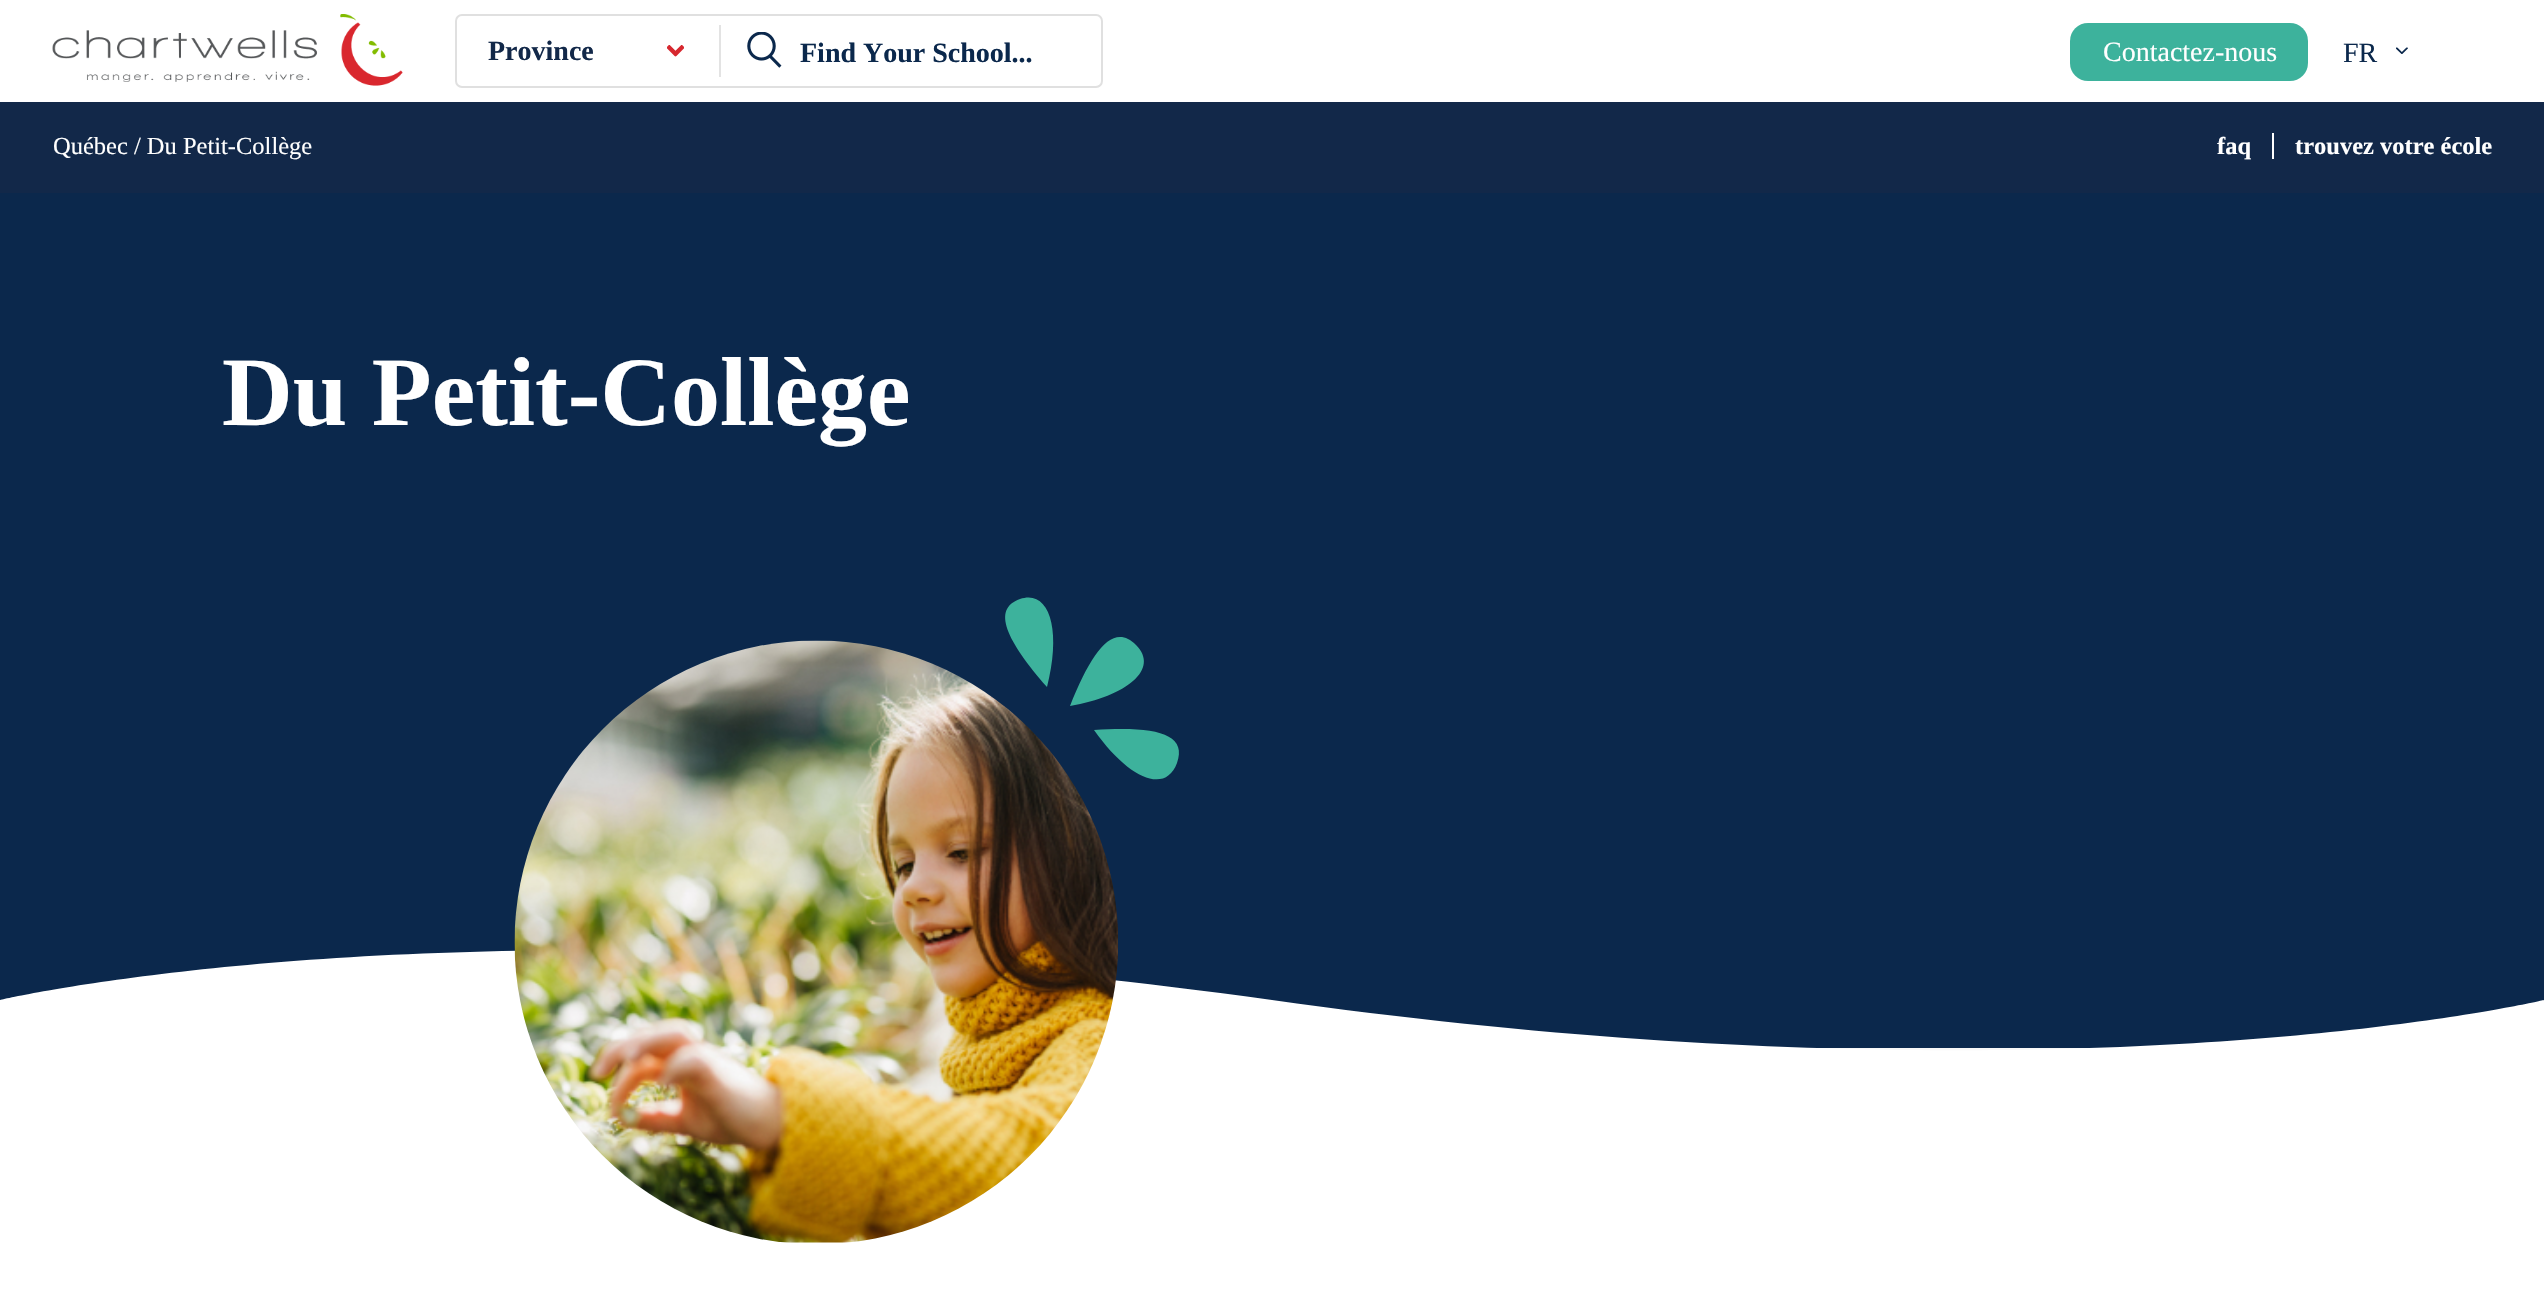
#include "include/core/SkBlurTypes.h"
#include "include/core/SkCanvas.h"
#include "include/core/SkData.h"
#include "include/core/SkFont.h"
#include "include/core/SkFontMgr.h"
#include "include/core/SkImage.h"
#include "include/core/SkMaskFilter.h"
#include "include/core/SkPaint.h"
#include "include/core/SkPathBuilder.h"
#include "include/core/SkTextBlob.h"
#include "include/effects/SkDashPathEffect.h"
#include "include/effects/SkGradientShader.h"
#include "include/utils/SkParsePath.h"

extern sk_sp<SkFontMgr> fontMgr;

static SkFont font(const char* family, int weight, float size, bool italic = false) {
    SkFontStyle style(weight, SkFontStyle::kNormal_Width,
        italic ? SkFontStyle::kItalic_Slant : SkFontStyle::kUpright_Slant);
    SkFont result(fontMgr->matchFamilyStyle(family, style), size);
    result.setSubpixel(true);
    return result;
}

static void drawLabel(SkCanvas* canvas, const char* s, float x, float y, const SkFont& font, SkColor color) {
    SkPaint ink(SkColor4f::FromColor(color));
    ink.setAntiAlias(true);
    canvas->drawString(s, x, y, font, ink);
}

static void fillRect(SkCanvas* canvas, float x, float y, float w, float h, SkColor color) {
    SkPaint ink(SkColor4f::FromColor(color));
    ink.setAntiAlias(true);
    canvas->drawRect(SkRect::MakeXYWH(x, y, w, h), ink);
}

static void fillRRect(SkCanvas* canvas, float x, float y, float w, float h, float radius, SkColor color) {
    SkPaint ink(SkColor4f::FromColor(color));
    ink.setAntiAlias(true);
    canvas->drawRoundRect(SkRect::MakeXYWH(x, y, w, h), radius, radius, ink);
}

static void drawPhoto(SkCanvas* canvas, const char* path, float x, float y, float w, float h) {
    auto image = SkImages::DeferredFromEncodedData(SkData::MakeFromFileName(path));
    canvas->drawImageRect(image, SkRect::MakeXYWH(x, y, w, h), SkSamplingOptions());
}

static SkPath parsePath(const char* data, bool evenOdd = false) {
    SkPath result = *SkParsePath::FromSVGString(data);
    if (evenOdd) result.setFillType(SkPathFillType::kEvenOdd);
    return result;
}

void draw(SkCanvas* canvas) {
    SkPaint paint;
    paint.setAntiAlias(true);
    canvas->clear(0xFFF7F7F7);
    fillRect(canvas, 0, 0, 2544, 102, 0xFFFFFFFF);
    drawPhoto(canvas, "assets/img1.png", 52, 14, 351, 72);
    paint.setStroke(true);
    paint.setStrokeWidth(2);
    paint.setColor(0xFFE0E0E0);
    canvas->drawRoundRect(SkRect::MakeXYWH(456, 15, 646, 72), 6, 6, paint);
    SkFont font1 = font("Liberation Serif", 700, 28);
    drawLabel(canvas, "Province", 488, 60, font1, 0xFF122849);
    drawPhoto(canvas, "assets/img2.png", 667, 45, 17, 12);
    fillRect(canvas, 719, 25, 2, 52, 0xFFE3E3E3);
    drawPhoto(canvas, "assets/img3.png", 747, 32, 35, 36);
    drawLabel(canvas, "Find Your School...", 800, 62, font1, 0xFF0B284C);
    fillRRect(canvas, 2070, 23, 238, 58, 18, 0xFF3DB29C);
    SkFont font2 = font("Liberation Serif", 400, 28);
    drawLabel(canvas, "Contactez-nous", 2103, 61, font2, 0xFFFFFFFF);
    drawLabel(canvas, "FR", 2343, 62, font2, 0xFF0B284C);
    drawPhoto(canvas, "assets/img4.png", 2396, 47, 12, 7);
    fillRect(canvas, 0, 102, 2544, 91, 0xFF122849);
    SkFont font3 = font("Liberation Serif", 400, 24.5f);
    drawLabel(canvas, "Québec / Du Petit-Collège", 53, 154, font3, 0xFFFFFFFF);
    SkFont font4 = font("Liberation Serif", 700, 24.5f);
    drawLabel(canvas, "faq", 2217, 154, font4, 0xFFFFFFFF);
    fillRect(canvas, 2272, 133, 2, 26, 0xFFFFFFFF);
    drawLabel(canvas, "trouvez votre école", 2295, 154, font4, 0xFFFFFFFF);
    fillRect(canvas, 0, 193, 2544, 855, 0xFF0B284C);
    SkFont font5 = font("Liberation Serif", 700, 98);
    drawLabel(canvas, "Du Petit-Collège", 222, 425, font5, 0xFFFFFFFF);
    paint.setStroke(false);
    paint.setColor(0xFF3DB29C);
    canvas->drawPath(parsePath("M1047 687C1007 641 991 609 1020 599C1049 589 1062 629 1047 687ZM1136 645C1160 669 1127 696 1070 706C1092 651 1113 622 1136 645ZM1177 763C1165 795 1128 778 1094 730C1154 726 1188 733 1177 763Z", true), paint);
    fillRect(canvas, 0, 1083, 2544, 211, 0xFFFFFFFF);
    canvas->save();
    canvas->clipRect(SkRect::MakeXYWH(0, 950, 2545, 133));
    paint.setColor(0xFFFFFFFF);
    canvas->drawPath(parsePath("M0 1000C0 1000 474 888 1272 1000C2070 1113 2544 1000 2544 1000V1085H0Z"), paint);
    canvas->restore();
    drawPhoto(canvas, "assets/img5.png", 514, 640, 604, 603);
}
